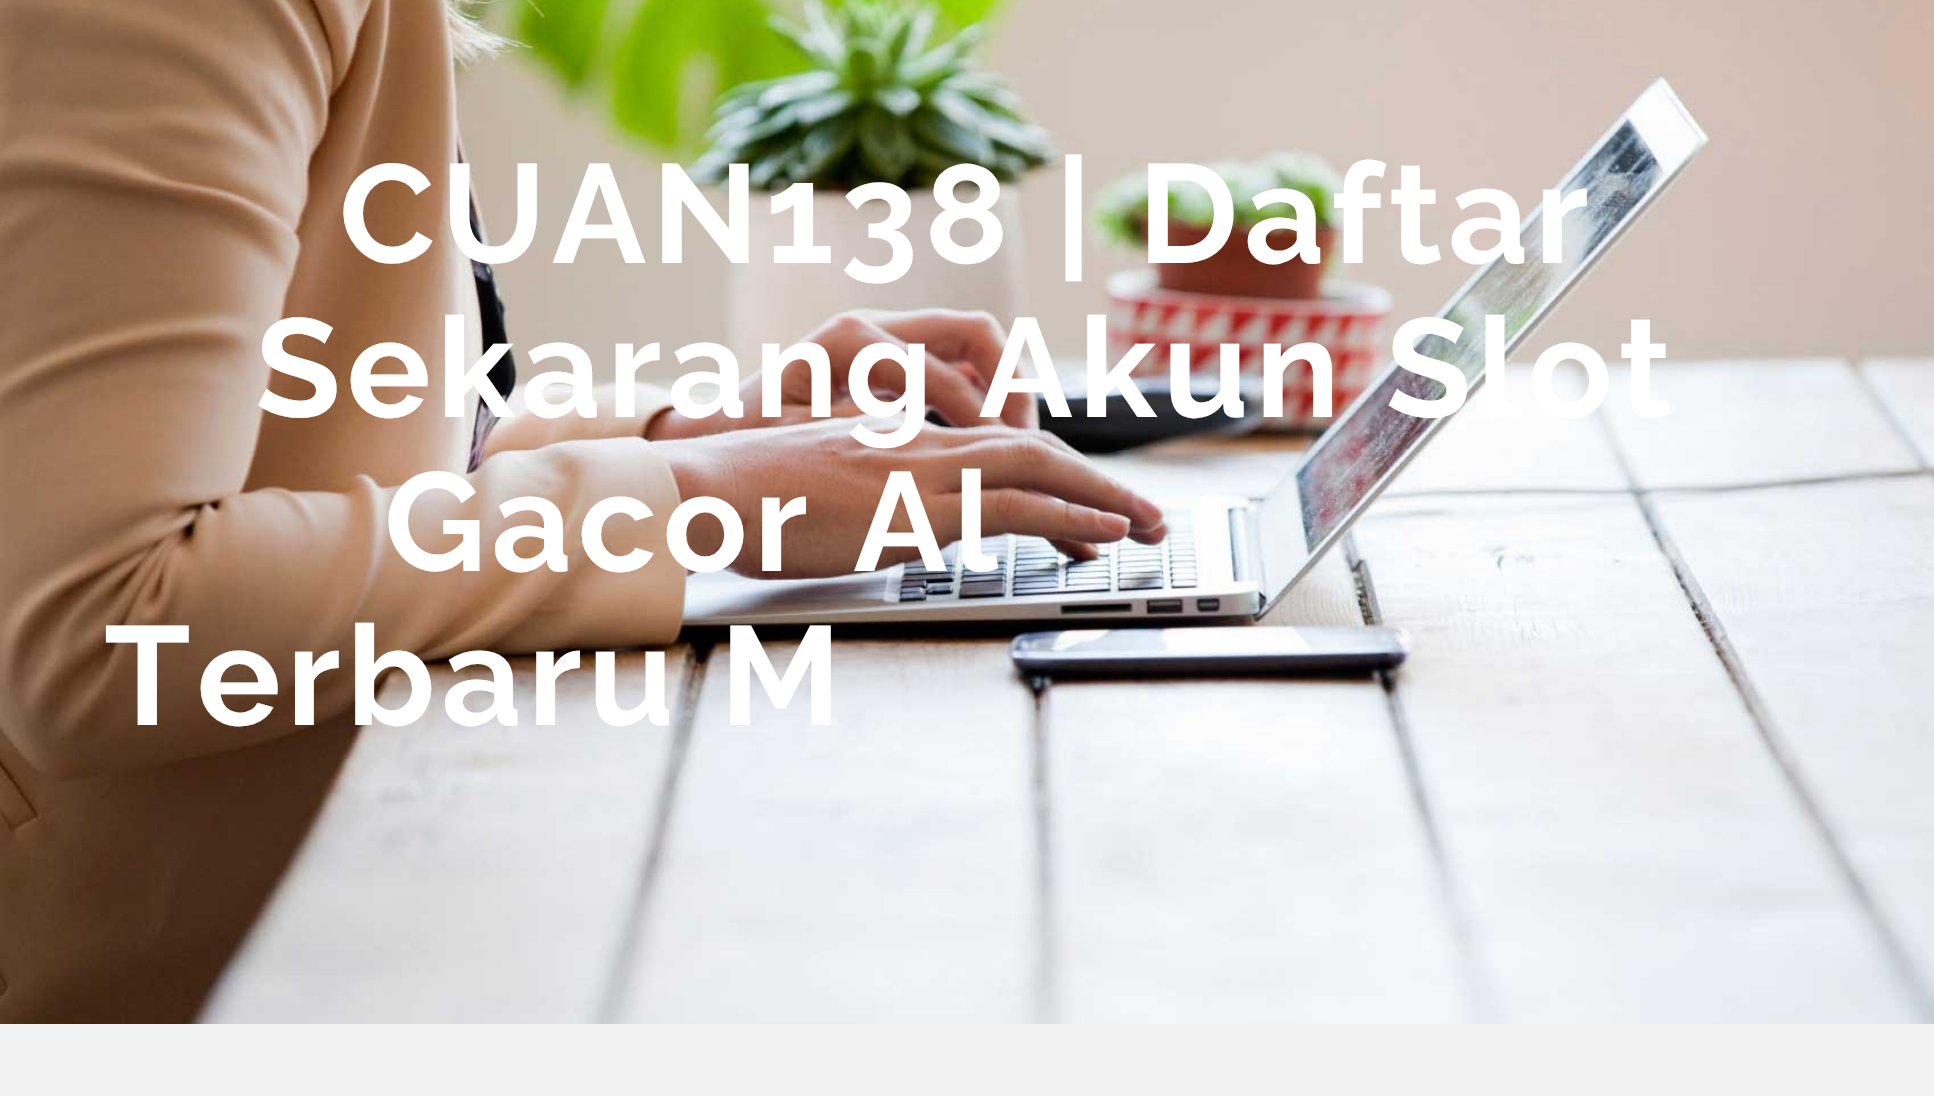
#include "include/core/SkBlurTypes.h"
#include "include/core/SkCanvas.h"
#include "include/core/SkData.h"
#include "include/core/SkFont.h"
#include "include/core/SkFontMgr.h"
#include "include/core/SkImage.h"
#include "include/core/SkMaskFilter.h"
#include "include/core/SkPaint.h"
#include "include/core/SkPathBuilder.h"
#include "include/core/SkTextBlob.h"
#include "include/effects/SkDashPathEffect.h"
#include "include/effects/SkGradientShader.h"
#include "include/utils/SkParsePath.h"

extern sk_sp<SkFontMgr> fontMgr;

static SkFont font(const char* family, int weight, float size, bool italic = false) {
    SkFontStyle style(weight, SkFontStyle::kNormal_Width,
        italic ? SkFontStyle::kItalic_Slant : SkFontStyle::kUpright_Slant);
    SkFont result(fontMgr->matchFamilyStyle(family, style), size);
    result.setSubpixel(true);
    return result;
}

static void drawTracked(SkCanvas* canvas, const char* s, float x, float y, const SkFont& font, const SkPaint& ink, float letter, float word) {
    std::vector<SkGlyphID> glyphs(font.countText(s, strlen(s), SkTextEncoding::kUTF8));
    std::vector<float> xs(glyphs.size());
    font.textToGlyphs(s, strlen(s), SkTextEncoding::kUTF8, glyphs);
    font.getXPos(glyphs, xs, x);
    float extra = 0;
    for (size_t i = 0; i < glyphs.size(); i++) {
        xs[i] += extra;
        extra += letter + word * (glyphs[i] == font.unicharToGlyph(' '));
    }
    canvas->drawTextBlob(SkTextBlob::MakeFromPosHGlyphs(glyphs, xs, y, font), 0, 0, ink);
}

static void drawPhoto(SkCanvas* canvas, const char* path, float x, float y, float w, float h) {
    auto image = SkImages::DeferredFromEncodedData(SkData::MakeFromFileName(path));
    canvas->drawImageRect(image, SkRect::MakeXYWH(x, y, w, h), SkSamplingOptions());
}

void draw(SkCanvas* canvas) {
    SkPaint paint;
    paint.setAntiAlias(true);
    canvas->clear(0xFFF2F2F2);
    drawPhoto(canvas, "assets/img1.png", 0, 0, 1934, 1024);
    SkFont font1 = font("Raleway", 700, 140);
    paint.setColor(0xFFFFFFFF);
    drawTracked(canvas, "CUAN138 | Daftar", 339, 263, font1, paint, 6, 0);
    drawTracked(canvas, "Sekarang Akun Slot", 255, 417, font1, paint, 6, 0);
    drawTracked(canvas, "Gacor Al", 384, 571, font1, paint, 6, 0);
    drawTracked(canvas, "Terbaru M", 104, 725, font1, paint, 6, 0);
}
